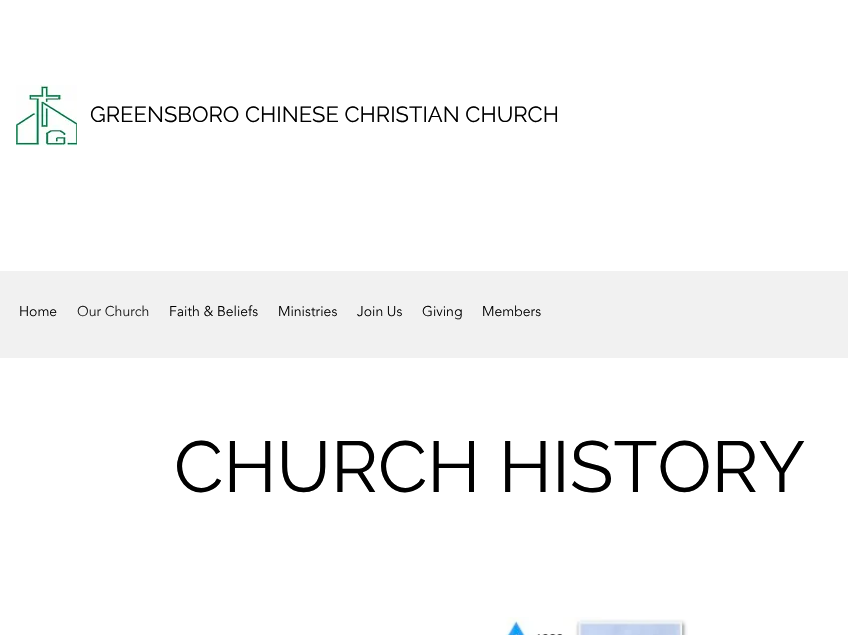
#include "include/core/SkBlurTypes.h"
#include "include/core/SkCanvas.h"
#include "include/core/SkData.h"
#include "include/core/SkFont.h"
#include "include/core/SkFontMgr.h"
#include "include/core/SkImage.h"
#include "include/core/SkMaskFilter.h"
#include "include/core/SkPaint.h"
#include "include/core/SkPathBuilder.h"
#include "include/core/SkTextBlob.h"
#include "include/effects/SkDashPathEffect.h"
#include "include/effects/SkGradientShader.h"
#include "include/utils/SkParsePath.h"

extern sk_sp<SkFontMgr> fontMgr;

static SkFont font(const char* family, int weight, float size, bool italic = false) {
    SkFontStyle style(weight, SkFontStyle::kNormal_Width,
        italic ? SkFontStyle::kItalic_Slant : SkFontStyle::kUpright_Slant);
    SkFont result(fontMgr->matchFamilyStyle(family, style), size);
    result.setSubpixel(true);
    return result;
}

static void drawLabel(SkCanvas* canvas, const char* s, float x, float y, const SkFont& font, SkColor color) {
    SkPaint ink(SkColor4f::FromColor(color));
    ink.setAntiAlias(true);
    canvas->drawString(s, x, y, font, ink);
}

static void fillRect(SkCanvas* canvas, float x, float y, float w, float h, SkColor color) {
    SkPaint ink(SkColor4f::FromColor(color));
    ink.setAntiAlias(true);
    canvas->drawRect(SkRect::MakeXYWH(x, y, w, h), ink);
}

static void drawPhoto(SkCanvas* canvas, const char* path, float x, float y, float w, float h) {
    auto image = SkImages::DeferredFromEncodedData(SkData::MakeFromFileName(path));
    canvas->drawImageRect(image, SkRect::MakeXYWH(x, y, w, h), SkSamplingOptions());
}

void draw(SkCanvas* canvas) {
    SkPaint paint;
    paint.setAntiAlias(true);
    canvas->clear(0xFFFFFFFF);
    drawPhoto(canvas, "assets/img1.png", 16, 85, 61, 61);
    SkFont font1 = font("Raleway", 400, 22);
    drawLabel(canvas, "GREENSBORO CHINESE CHRISTIAN CHURCH", 90, 122, font1, 0xFF000000);
    fillRect(canvas, 0, 271, 848, 87, 0xFFF1F1F1);
    SkFont font2 = font("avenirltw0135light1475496", 300, 14);
    drawLabel(canvas, "Home", 19, 316, font2, 0xFF000000);
    drawLabel(canvas, "Our Church", 77, 316, font2, 0xFF191919);
    drawLabel(canvas, "Faith & Beliefs", 169, 316, font2, 0xFF000000);
    drawLabel(canvas, "Ministries", 278, 316, font2, 0xFF000000);
    drawLabel(canvas, "Join Us", 357, 316, font2, 0xFF000000);
    drawLabel(canvas, "Giving", 422, 316, font2, 0xFF000000);
    drawLabel(canvas, "Members", 482, 316, font2, 0xFF000000);
    SkFont font3 = font("Raleway", 400, 72);
    drawLabel(canvas, "CHURCH HISTORY", 174, 492, font3, 0xFF000000);
    drawPhoto(canvas, "assets/img2.png", 505, 617, 183, 18);
}
